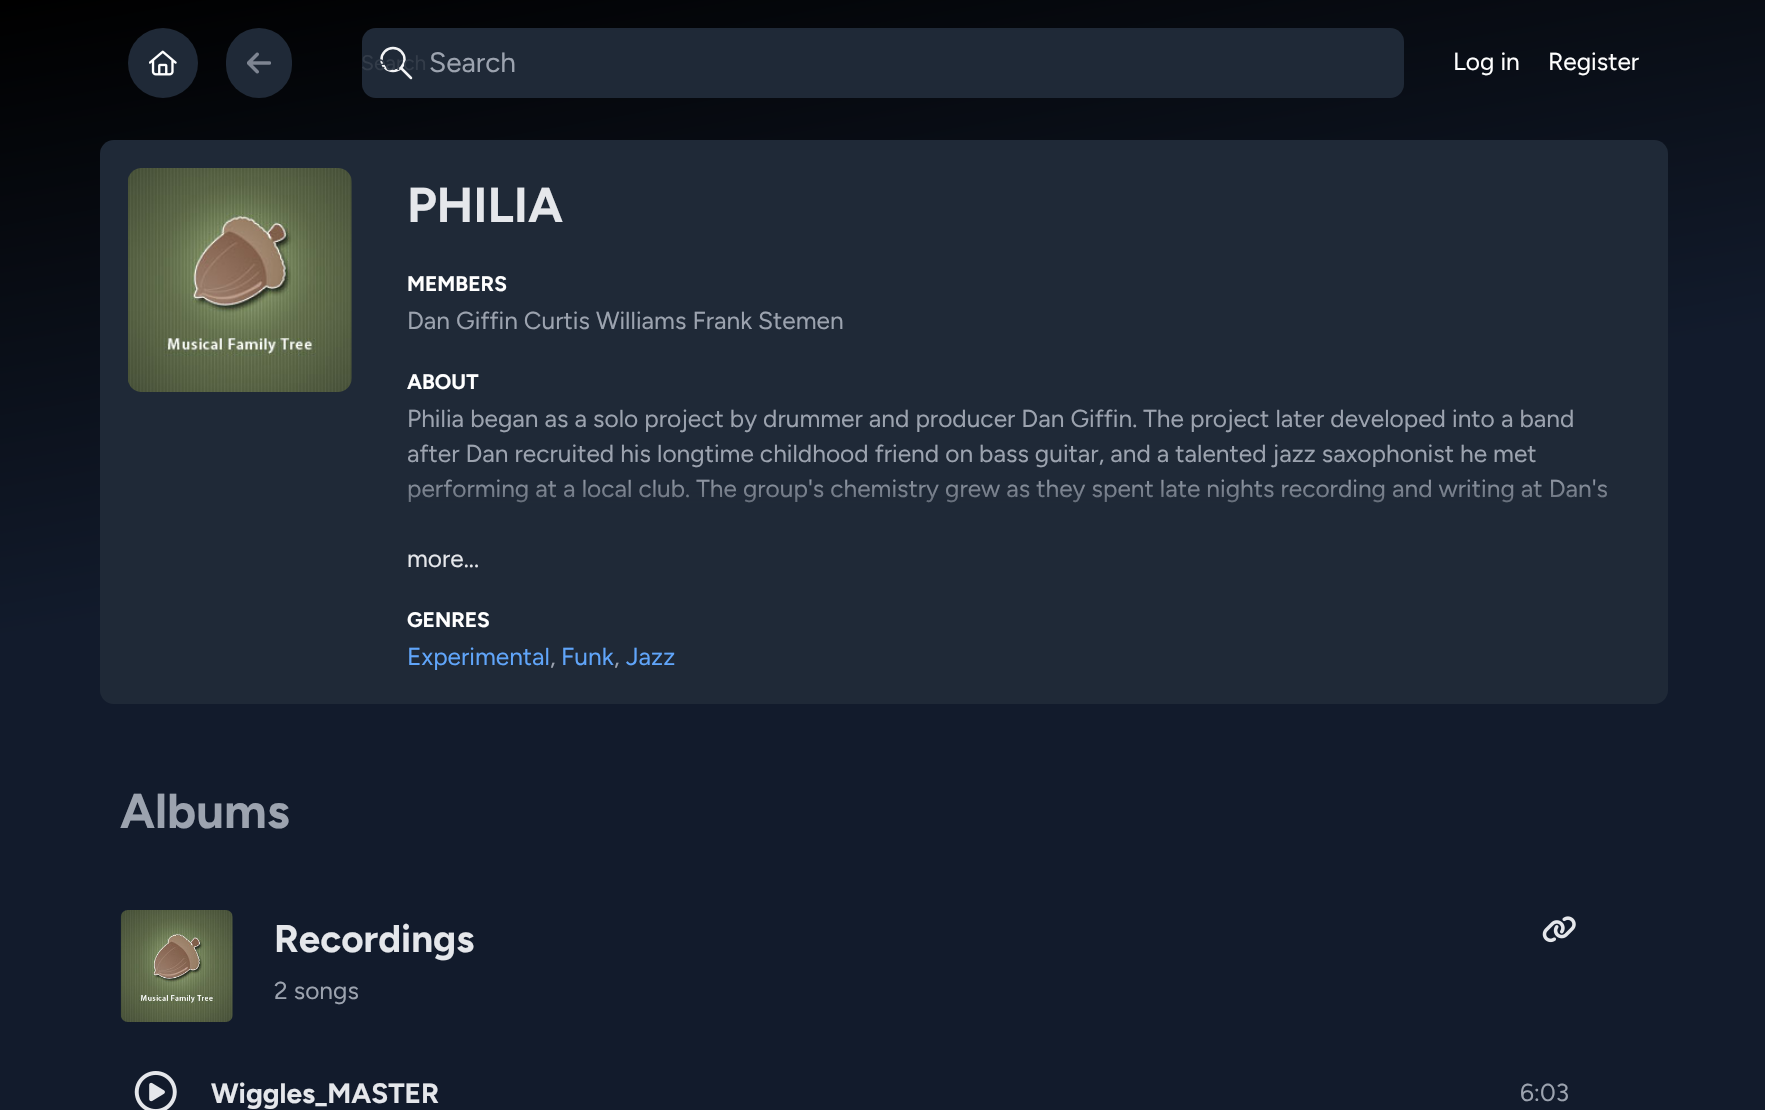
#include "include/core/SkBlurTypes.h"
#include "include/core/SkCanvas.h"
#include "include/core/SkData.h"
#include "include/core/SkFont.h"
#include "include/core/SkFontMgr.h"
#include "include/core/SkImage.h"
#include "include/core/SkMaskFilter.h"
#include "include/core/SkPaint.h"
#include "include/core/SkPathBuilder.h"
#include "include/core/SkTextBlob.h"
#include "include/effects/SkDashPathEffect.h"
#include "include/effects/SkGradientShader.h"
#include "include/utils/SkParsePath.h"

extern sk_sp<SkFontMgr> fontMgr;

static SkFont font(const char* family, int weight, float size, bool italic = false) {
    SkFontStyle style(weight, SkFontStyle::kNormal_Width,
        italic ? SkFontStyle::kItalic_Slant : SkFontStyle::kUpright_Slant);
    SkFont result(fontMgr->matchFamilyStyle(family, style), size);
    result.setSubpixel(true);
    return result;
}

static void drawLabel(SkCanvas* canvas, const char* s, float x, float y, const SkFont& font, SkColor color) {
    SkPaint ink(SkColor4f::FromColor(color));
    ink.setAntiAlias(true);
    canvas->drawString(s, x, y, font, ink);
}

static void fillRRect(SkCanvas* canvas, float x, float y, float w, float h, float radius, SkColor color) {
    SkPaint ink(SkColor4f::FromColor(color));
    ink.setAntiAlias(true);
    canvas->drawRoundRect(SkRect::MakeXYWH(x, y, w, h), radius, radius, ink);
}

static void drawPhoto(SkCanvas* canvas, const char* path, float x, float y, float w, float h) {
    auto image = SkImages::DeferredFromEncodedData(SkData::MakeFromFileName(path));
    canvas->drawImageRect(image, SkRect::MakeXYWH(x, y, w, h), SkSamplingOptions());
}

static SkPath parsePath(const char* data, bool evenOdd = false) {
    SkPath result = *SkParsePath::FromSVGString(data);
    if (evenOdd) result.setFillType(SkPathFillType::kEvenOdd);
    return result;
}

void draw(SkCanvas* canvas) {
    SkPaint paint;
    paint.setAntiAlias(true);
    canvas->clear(0xFFFFFFFF);
    {
        const SkColor colors[] = {0xFF121B2C, 0xFF000000};
        const float stops[] = {0.55f, 1};
        const SkPoint ends[] = {{1005, 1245}, {761, -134}};
        paint.setShader(SkGradientShader::MakeLinear(ends, colors, stops, 2, SkTileMode::kClamp));
        paint.setAlpha(255);
    }
    canvas->drawRect(SkRect::MakeXYWH(0, 0, 1765, 1110), paint);
    paint.setShader(nullptr);
    paint.setColor(0xFF1F2937);
    canvas->drawCircle(163, 63, 35, paint);
    drawPhoto(canvas, "assets/img1.png", 149, 50, 28, 26);
    fillRRect(canvas, 226, 28, 66, 70, 33, 0xFF1F2937);
    drawPhoto(canvas, "assets/img2.png", 247, 52, 24, 22);
    fillRRect(canvas, 362, 28, 1042, 70, 14, 0xFF1F2937);
    paint.setStroke(true);
    paint.setStrokeWidth(2.5f);
    paint.setColor(0xFFF3F4F6);
    canvas->drawCircle(393, 59.5f, 11.5f, paint);
    paint.setStrokeCap(SkPaint::kRound_Cap);
    paint.setStrokeJoin(SkPaint::kRound_Join);
    canvas->drawPath(parsePath("M411 78L401 68"), paint);
    SkFont font1 = font("Figtree", 400, 28);
    drawLabel(canvas, "Search", 429, 72, font1, 0xFF9CA3AF);
    SkFont font2 = font("Figtree", 400, 21);
    drawLabel(canvas, "Search", 361, 70, font2, 0xFF333C49);
    SkFont font3 = font("Figtree", 400, 24.5f);
    drawLabel(canvas, "Log in", 1453, 70, font3, 0xFFFFFFFF);
    drawLabel(canvas, "Register", 1548, 70, font3, 0xFFFFFFFF);
    fillRRect(canvas, 100, 140, 1568, 564, 14, 0xFF1F2937);
    drawPhoto(canvas, "assets/img3.png", 128, 168, 224, 224);
    SkFont font4 = font("Figtree", 700, 49);
    drawLabel(canvas, "PHILIA", 407, 222, font4, 0xFFE5E7EB);
    SkFont font5 = font("Figtree", 700, 21);
    drawLabel(canvas, "MEMBERS", 407, 291, font5, 0xFFFFFFFF);
    drawLabel(canvas, "Dan Giffin Curtis Williams Frank Stemen", 407, 329, font3, 0xFF9CA3AF);
    drawLabel(canvas, "ABOUT", 407, 389, font5, 0xFFFFFFFF);
    drawLabel(canvas, "Philia began as a solo project by drummer and producer Dan Giffin. The project later developed into a band", 407, 427, font3, 0xFF9CA3AF);
    drawLabel(canvas, "after Dan recruited his longtime childhood friend on bass guitar, and a talented jazz saxophonist he met", 407, 462, font3, 0xFF9CA3AF);
    drawLabel(canvas, "performing at a local club. The group's chemistry grew as they spent late nights recording and writing at Dan's", 407, 497, font3, 0xFF9CA3AF);
    paint.setStroke(false);
    {
        const SkColor colors[] = {0x001F2936, 0xFF1F2936};
        const float stops[] = {0, 1};
        const SkPoint ends[] = {{1010, 472}, {1010, 543}};
        paint.setShader(SkGradientShader::MakeLinear(ends, colors, stops, 2, SkTileMode::kClamp));
        paint.setAlpha(255);
    }
    canvas->drawRect(SkRect::MakeXYWH(408, 479, 1199, 24), paint);
    drawLabel(canvas, "more...", 407, 567, font3, 0xFFE5E7EB);
    drawLabel(canvas, "GENRES", 407, 627, font5, 0xFFFFFFFF);
    drawLabel(canvas, "Experimental", 407, 665, font3, 0xFF60A5FA);
    drawLabel(canvas, ",", 550, 665, font3, 0xFF9CA3AF);
    drawLabel(canvas, "Funk", 561, 665, font3, 0xFF60A5FA);
    drawLabel(canvas, ",", 614, 665, font3, 0xFF9CA3AF);
    drawLabel(canvas, "Jazz", 626, 665, font3, 0xFF60A5FA);
    drawLabel(canvas, "Albums", 120, 828, font4, 0xFF9CA3AF);
    drawPhoto(canvas, "assets/img4.png", 120, 910, 113, 112);
    SkFont font6 = font("Figtree", 700, 38.5f);
    drawLabel(canvas, "Recordings", 274, 952, font6, 0xFFE5E7EB);
    drawPhoto(canvas, "assets/img5.png", 1542, 916, 34, 27);
    drawLabel(canvas, "2 songs", 274, 999, font3, 0xFF9CA3AF);
    drawPhoto(canvas, "assets/img6.png", 134, 1071, 43, 39);
    SkFont font7 = font("Figtree", 700, 28);
    drawLabel(canvas, "Wiggles_MASTER", 211, 1103, font7, 0xFFE5E7EB);
    drawLabel(canvas, "6:03", 1520, 1101, font3, 0xFF9CA3AF);
}
